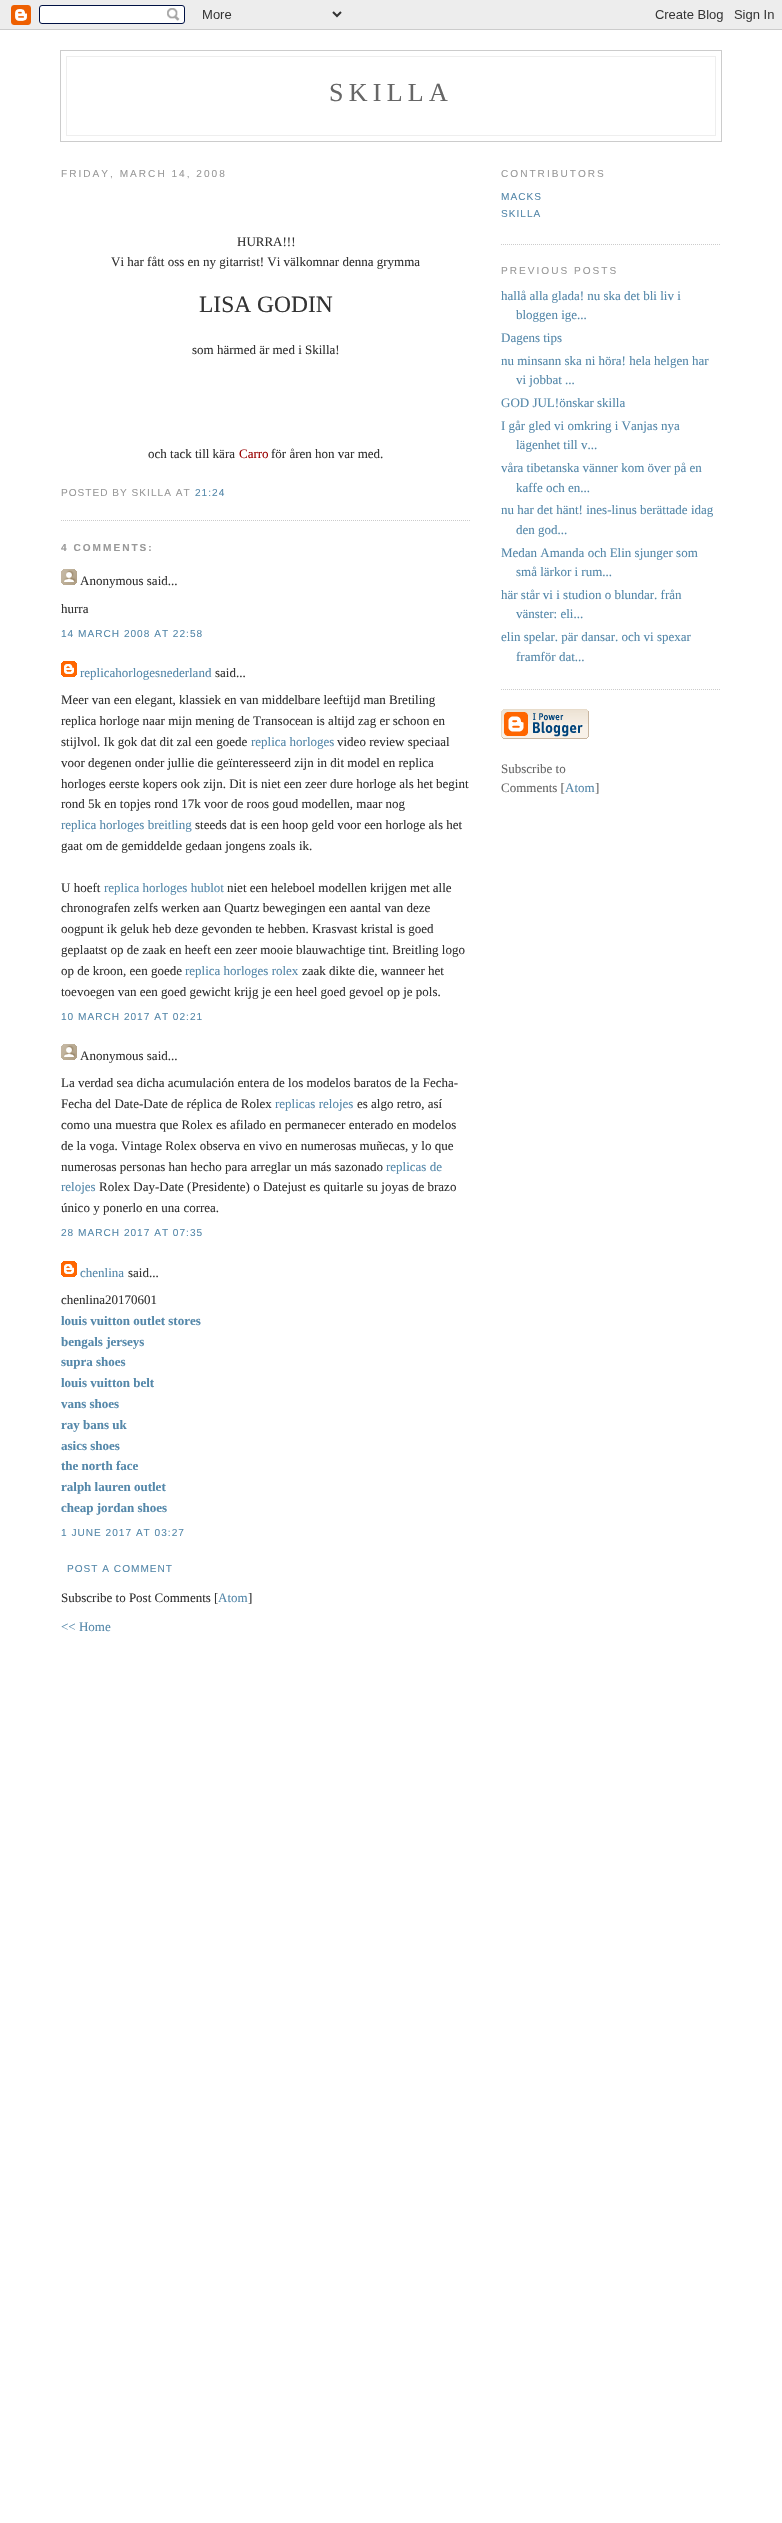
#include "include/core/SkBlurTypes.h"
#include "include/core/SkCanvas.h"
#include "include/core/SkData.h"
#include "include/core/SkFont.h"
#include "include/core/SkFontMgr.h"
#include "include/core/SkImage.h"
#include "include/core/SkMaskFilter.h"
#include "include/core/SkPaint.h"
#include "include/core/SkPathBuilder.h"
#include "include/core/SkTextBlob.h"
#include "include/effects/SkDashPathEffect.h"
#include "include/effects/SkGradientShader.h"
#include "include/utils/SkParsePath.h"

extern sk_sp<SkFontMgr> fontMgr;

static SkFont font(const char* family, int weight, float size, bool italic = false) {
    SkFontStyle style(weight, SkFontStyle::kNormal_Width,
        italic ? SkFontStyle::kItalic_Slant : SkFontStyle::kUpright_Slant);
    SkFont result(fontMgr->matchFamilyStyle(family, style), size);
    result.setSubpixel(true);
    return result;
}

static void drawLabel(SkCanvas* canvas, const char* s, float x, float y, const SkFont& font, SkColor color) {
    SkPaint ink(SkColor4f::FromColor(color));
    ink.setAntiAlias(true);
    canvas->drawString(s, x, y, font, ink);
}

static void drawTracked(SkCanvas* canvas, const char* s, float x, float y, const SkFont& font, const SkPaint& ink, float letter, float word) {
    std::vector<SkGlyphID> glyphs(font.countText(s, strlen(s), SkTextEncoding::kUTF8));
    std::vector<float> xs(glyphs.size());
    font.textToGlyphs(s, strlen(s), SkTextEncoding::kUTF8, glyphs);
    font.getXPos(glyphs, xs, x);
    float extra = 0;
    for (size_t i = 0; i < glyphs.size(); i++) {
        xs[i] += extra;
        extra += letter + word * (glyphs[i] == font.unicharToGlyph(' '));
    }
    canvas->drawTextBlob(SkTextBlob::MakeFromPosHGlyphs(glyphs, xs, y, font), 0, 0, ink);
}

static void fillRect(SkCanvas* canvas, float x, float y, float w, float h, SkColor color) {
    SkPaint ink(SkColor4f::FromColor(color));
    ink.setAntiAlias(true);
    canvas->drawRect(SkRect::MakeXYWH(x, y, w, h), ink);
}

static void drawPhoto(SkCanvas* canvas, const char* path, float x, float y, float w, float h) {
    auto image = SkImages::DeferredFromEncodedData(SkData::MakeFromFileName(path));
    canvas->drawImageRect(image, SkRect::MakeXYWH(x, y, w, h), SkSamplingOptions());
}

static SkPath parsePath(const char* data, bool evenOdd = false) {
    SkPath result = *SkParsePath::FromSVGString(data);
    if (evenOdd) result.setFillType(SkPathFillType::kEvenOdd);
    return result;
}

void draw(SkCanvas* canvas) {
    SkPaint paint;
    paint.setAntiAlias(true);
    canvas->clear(0xFFFFFFFF);
    drawPhoto(canvas, "assets/img1.png", 0, 0, 782, 30);
    paint.setStroke(true);
    paint.setStrokeWidth(1);
    paint.setColor(0xFFCCCCCC);
    canvas->drawRect(SkRect::MakeXYWH(60.5f, 50.5f, 661, 91), paint);
    fillRect(canvas, 66, 56, 650, 1, 0xFFEEEEEE);
    fillRect(canvas, 715, 56, 1, 80, 0xFFEEEEEE);
    fillRect(canvas, 66, 56, 1, 59, 0xFFEEEEEE);
    SkFont font1 = font("Liberation Serif", 400, 26);
    paint.setStroke(false);
    paint.setColor(0xFF666666);
    drawTracked(canvas, "SKILLA", 329, 101, font1, paint, 5.25f, 0);
    fillRect(canvas, 66, 135, 650, 1, 0xFFEEEEEE);
    fillRect(canvas, 66, 115, 1, 21, 0xFFEEEEEE);
    SkFont font2 = font("Liberation Sans", 400, 10.1f);
    paint.setColor(0xFF999999);
    drawTracked(canvas, "FRIDAY, MARCH 14, 2008", 61, 177, font2, paint, 2, 0);
    paint.setStroke(true);
    paint.setColor(0xFFCCCCCC);
    paint.setPathEffect(SkDashPathEffect::Make({{1, 1}}, 0));
    canvas->drawPath(parsePath("M61 520.5H471"), paint);
    paint.setPathEffect(nullptr);
    SkFont font3 = font("Liberation Serif", 400, 13);
    drawLabel(canvas, "HURRA!!!", 237, 246, font3, 0xFF333333);
    drawLabel(canvas, "Vi har fått oss en ny gitarrist! Vi välkomnar denna grymma", 111, 266, font3, 0xFF333333);
    SkFont font4 = font("Liberation Serif", 400, 23.5f);
    drawLabel(canvas, "LISA GODIN", 199, 312, font4, 0xFF333333);
    drawLabel(canvas, "som härmed är med i Skilla!", 192, 354, font3, 0xFF333333);
    drawLabel(canvas, "och tack till kära", 148, 458, font3, 0xFF333333);
    drawLabel(canvas, "Carro", 239, 458, font3, 0xFF990000);
    drawLabel(canvas, "för åren hon var med.", 271, 458, font3, 0xFF333333);
    paint.setStroke(false);
    paint.setColor(0xFF999999);
    drawTracked(canvas, "POSTED BY SKILLA AT", 61, 496, font2, paint, 1, 0);
    paint.setColor(0xFF5588AA);
    drawTracked(canvas, "21:24", 195, 496, font2, paint, 1, 0);
    SkFont font5 = font("Liberation Sans", 700, 10.1f);
    paint.setColor(0xFF999999);
    drawTracked(canvas, "4 COMMENTS:", 61, 551, font5, paint, 2, 0);
    drawPhoto(canvas, "assets/img2.png", 61, 569, 16, 16);
    drawLabel(canvas, "Anonymous said...", 80, 585, font3, 0xFF333333);
    drawLabel(canvas, "hurra", 61, 613, font3, 0xFF333333);
    paint.setColor(0xFF5588AA);
    drawTracked(canvas, "14 MARCH 2008 AT 22:58", 61, 637, font2, paint, 1, 0);
    drawPhoto(canvas, "assets/img3.png", 61, 661, 16, 16);
    drawLabel(canvas, "replicahorlogesnederland", 80, 677, font3, 0xFF5588AA);
    drawLabel(canvas, "said...", 215, 677, font3, 0xFF333333);
    drawLabel(canvas, "Meer van een elegant, klassiek en van middelbare leeftijd man Bretiling", 61, 704, font3, 0xFF333333);
    drawLabel(canvas, "replica horloge naar mijn mening de Transocean is altijd zag er schoon en", 61, 725, font3, 0xFF333333);
    drawLabel(canvas, "stijlvol. Ik gok dat dit zal een goede", 61, 746, font3, 0xFF333333);
    drawLabel(canvas, "replica horloges", 251, 746, font3, 0xFF5588AA);
    drawLabel(canvas, "video review speciaal", 337, 746, font3, 0xFF333333);
    drawLabel(canvas, "voor degenen onder jullie die geïnteresseerd zijn in dit model en replica", 61, 767, font3, 0xFF333333);
    drawLabel(canvas, "horloges eerste kopers ook zijn. Dit is niet een zeer dure horloge als het begint", 61, 788, font3, 0xFF333333);
    drawLabel(canvas, "rond 5k en topjes rond 17k voor de roos goud modellen, maar nog", 61, 808, font3, 0xFF333333);
    drawLabel(canvas, "replica horloges breitling", 61, 829, font3, 0xFF5588AA);
    drawLabel(canvas, "steeds dat is een hoop geld voor een horloge als het", 195, 829, font3, 0xFF333333);
    drawLabel(canvas, "gaat om de gemiddelde gedaan jongens zoals ik.", 61, 850, font3, 0xFF333333);
    drawLabel(canvas, "U hoeft", 61, 892, font3, 0xFF333333);
    drawLabel(canvas, "replica horloges hublot", 104, 892, font3, 0xFF5588AA);
    drawLabel(canvas, "niet een heleboel modellen krijgen met alle", 227, 892, font3, 0xFF333333);
    drawLabel(canvas, "chronografen zelfs werken aan Quartz bewegingen een aantal van deze", 61, 912, font3, 0xFF333333);
    drawLabel(canvas, "oogpunt ik geluk heb deze gevonden te hebben. Krasvast kristal is goed", 61, 933, font3, 0xFF333333);
    drawLabel(canvas, "geplaatst op de zaak en heeft een zeer mooie blauwachtige tint. Breitling logo", 61, 954, font3, 0xFF333333);
    drawLabel(canvas, "op de kroon, een goede", 61, 975, font3, 0xFF333333);
    drawLabel(canvas, "replica horloges rolex", 185, 975, font3, 0xFF5588AA);
    drawLabel(canvas, "zaak dikte die, wanneer het", 302, 975, font3, 0xFF333333);
    drawLabel(canvas, "toevoegen van een goed gewicht krijg je een heel goed gevoel op je pols.", 61, 996, font3, 0xFF333333);
    drawTracked(canvas, "10 MARCH 2017 AT 02:21", 61, 1020, font2, paint, 1, 0);
    drawPhoto(canvas, "assets/img2.png", 61, 1044, 16, 16);
    drawLabel(canvas, "Anonymous said...", 80, 1060, font3, 0xFF333333);
    drawLabel(canvas, "La verdad sea dicha acumulación entera de los modelos baratos de la Fecha-", 61, 1087, font3, 0xFF333333);
    drawLabel(canvas, "Fecha del Date-Date de réplica de Rolex", 61, 1108, font3, 0xFF333333);
    drawLabel(canvas, "replicas relojes", 275, 1108, font3, 0xFF5588AA);
    drawLabel(canvas, "es algo retro, así", 357, 1108, font3, 0xFF333333);
    drawLabel(canvas, "como una muestra que Rolex es afilado en permanecer enterado en modelos", 61, 1129, font3, 0xFF333333);
    drawLabel(canvas, "de la voga. Vintage Rolex observa en vivo en numerosas muñecas, y lo que", 61, 1150, font3, 0xFF333333);
    drawLabel(canvas, "numerosas personas han hecho para arreglar un más sazonado", 61, 1171, font3, 0xFF333333);
    drawLabel(canvas, "replicas de", 386, 1171, font3, 0xFF5588AA);
    drawLabel(canvas, "relojes", 61, 1191, font3, 0xFF5588AA);
    drawLabel(canvas, "Rolex Day-Date (Presidente) o Datejust es quitarle su joyas de brazo", 99, 1191, font3, 0xFF333333);
    drawLabel(canvas, "único y ponerlo en una correa.", 61, 1212, font3, 0xFF333333);
    drawTracked(canvas, "28 MARCH 2017 AT 07:35", 61, 1236, font2, paint, 1, 0);
    drawPhoto(canvas, "assets/img3.png", 61, 1261, 16, 16);
    drawLabel(canvas, "chenlina", 80, 1277, font3, 0xFF5588AA);
    drawLabel(canvas, "said...", 128, 1277, font3, 0xFF333333);
    drawLabel(canvas, "chenlina20170601", 61, 1304, font3, 0xFF333333);
    SkFont font6 = font("Liberation Serif", 700, 13);
    drawLabel(canvas, "louis vuitton outlet stores", 61, 1325, font6, 0xFF5588AA);
    drawLabel(canvas, "bengals jerseys", 61, 1346, font6, 0xFF5588AA);
    drawLabel(canvas, "supra shoes", 61, 1366, font6, 0xFF5588AA);
    drawLabel(canvas, "louis vuitton belt", 61, 1387, font6, 0xFF5588AA);
    drawLabel(canvas, "vans shoes", 61, 1408, font6, 0xFF5588AA);
    drawLabel(canvas, "ray bans uk", 61, 1429, font6, 0xFF5588AA);
    drawLabel(canvas, "asics shoes", 61, 1450, font6, 0xFF5588AA);
    drawLabel(canvas, "the north face", 61, 1470, font6, 0xFF5588AA);
    drawLabel(canvas, "ralph lauren outlet", 61, 1491, font6, 0xFF5588AA);
    drawLabel(canvas, "cheap jordan shoes", 61, 1512, font6, 0xFF5588AA);
    drawTracked(canvas, "1 JUNE 2017 AT 03:27", 61, 1536, font2, paint, 1, 0);
    drawTracked(canvas, "POST A COMMENT", 67, 1572, font2, paint, 1, 0);
    drawLabel(canvas, "Subscribe to Post Comments [", 61, 1602, font3, 0xFF333333);
    drawLabel(canvas, "Atom", 218, 1602, font3, 0xFF5588AA);
    drawLabel(canvas, "]", 248, 1602, font3, 0xFF333333);
    drawLabel(canvas, "<< Home", 61, 1631, font3, 0xFF5588AA);
    paint.setColor(0xFF999999);
    drawTracked(canvas, "CONTRIBUTORS", 501, 177, font2, paint, 2, 0);
    paint.setStroke(true);
    paint.setColor(0xFFCCCCCC);
    paint.setPathEffect(SkDashPathEffect::Make({{1, 1}}, 0));
    canvas->drawPath(parsePath("M501 244.5H721"), paint);
    paint.setPathEffect(nullptr);
    paint.setStroke(false);
    paint.setColor(0xFF5588AA);
    drawTracked(canvas, "MACKS", 501, 200, font2, paint, 1, 0);
    drawTracked(canvas, "SKILLA", 501, 217, font2, paint, 1, 0);
    paint.setColor(0xFF999999);
    drawTracked(canvas, "PREVIOUS POSTS", 501, 274, font2, paint, 2, 0);
    paint.setStroke(true);
    paint.setColor(0xFFCCCCCC);
    paint.setPathEffect(SkDashPathEffect::Make({{1, 1}}, 0));
    canvas->drawPath(parsePath("M501 689.5H721"), paint);
    paint.setPathEffect(nullptr);
    drawLabel(canvas, "hallå alla glada! nu ska det bli liv i", 501, 300, font3, 0xFF5588AA);
    drawLabel(canvas, "bloggen ige...", 516, 319, font3, 0xFF5588AA);
    drawLabel(canvas, "Dagens tips", 501, 342, font3, 0xFF5588AA);
    drawLabel(canvas, "nu minsann ska ni höra! hela helgen har", 501, 365, font3, 0xFF5588AA);
    drawLabel(canvas, "vi jobbat ...", 516, 384, font3, 0xFF5588AA);
    drawLabel(canvas, "GOD JUL!önskar skilla", 501, 407, font3, 0xFF5588AA);
    drawLabel(canvas, "I går gled vi omkring i Vanjas nya", 501, 430, font3, 0xFF5588AA);
    drawLabel(canvas, "lägenhet till v...", 516, 449, font3, 0xFF5588AA);
    drawLabel(canvas, "våra tibetanska vänner kom över på en", 501, 472, font3, 0xFF5588AA);
    drawLabel(canvas, "kaffe och en...", 516, 492, font3, 0xFF5588AA);
    drawLabel(canvas, "nu har det hänt! ines-linus berättade idag", 501, 514, font3, 0xFF5588AA);
    drawLabel(canvas, "den god...", 516, 534, font3, 0xFF5588AA);
    drawLabel(canvas, "Medan Amanda och Elin sjunger som", 501, 557, font3, 0xFF5588AA);
    drawLabel(canvas, "små lärkor i rum...", 516, 576, font3, 0xFF5588AA);
    drawLabel(canvas, "här står vi i studion o blundar. från", 501, 599, font3, 0xFF5588AA);
    drawLabel(canvas, "vänster: eli...", 516, 618, font3, 0xFF5588AA);
    drawLabel(canvas, "elin spelar. pär dansar. och vi spexar", 501, 641, font3, 0xFF5588AA);
    drawLabel(canvas, "framför dat...", 516, 661, font3, 0xFF5588AA);
    drawPhoto(canvas, "assets/img4.png", 501, 709, 88, 30);
    drawLabel(canvas, "Subscribe to", 501, 773, font3, 0xFF666666);
    drawLabel(canvas, "Comments [", 501, 792, font3, 0xFF666666);
    drawLabel(canvas, "Atom", 565, 792, font3, 0xFF5588AA);
    drawLabel(canvas, "]", 595, 792, font3, 0xFF666666);
}
